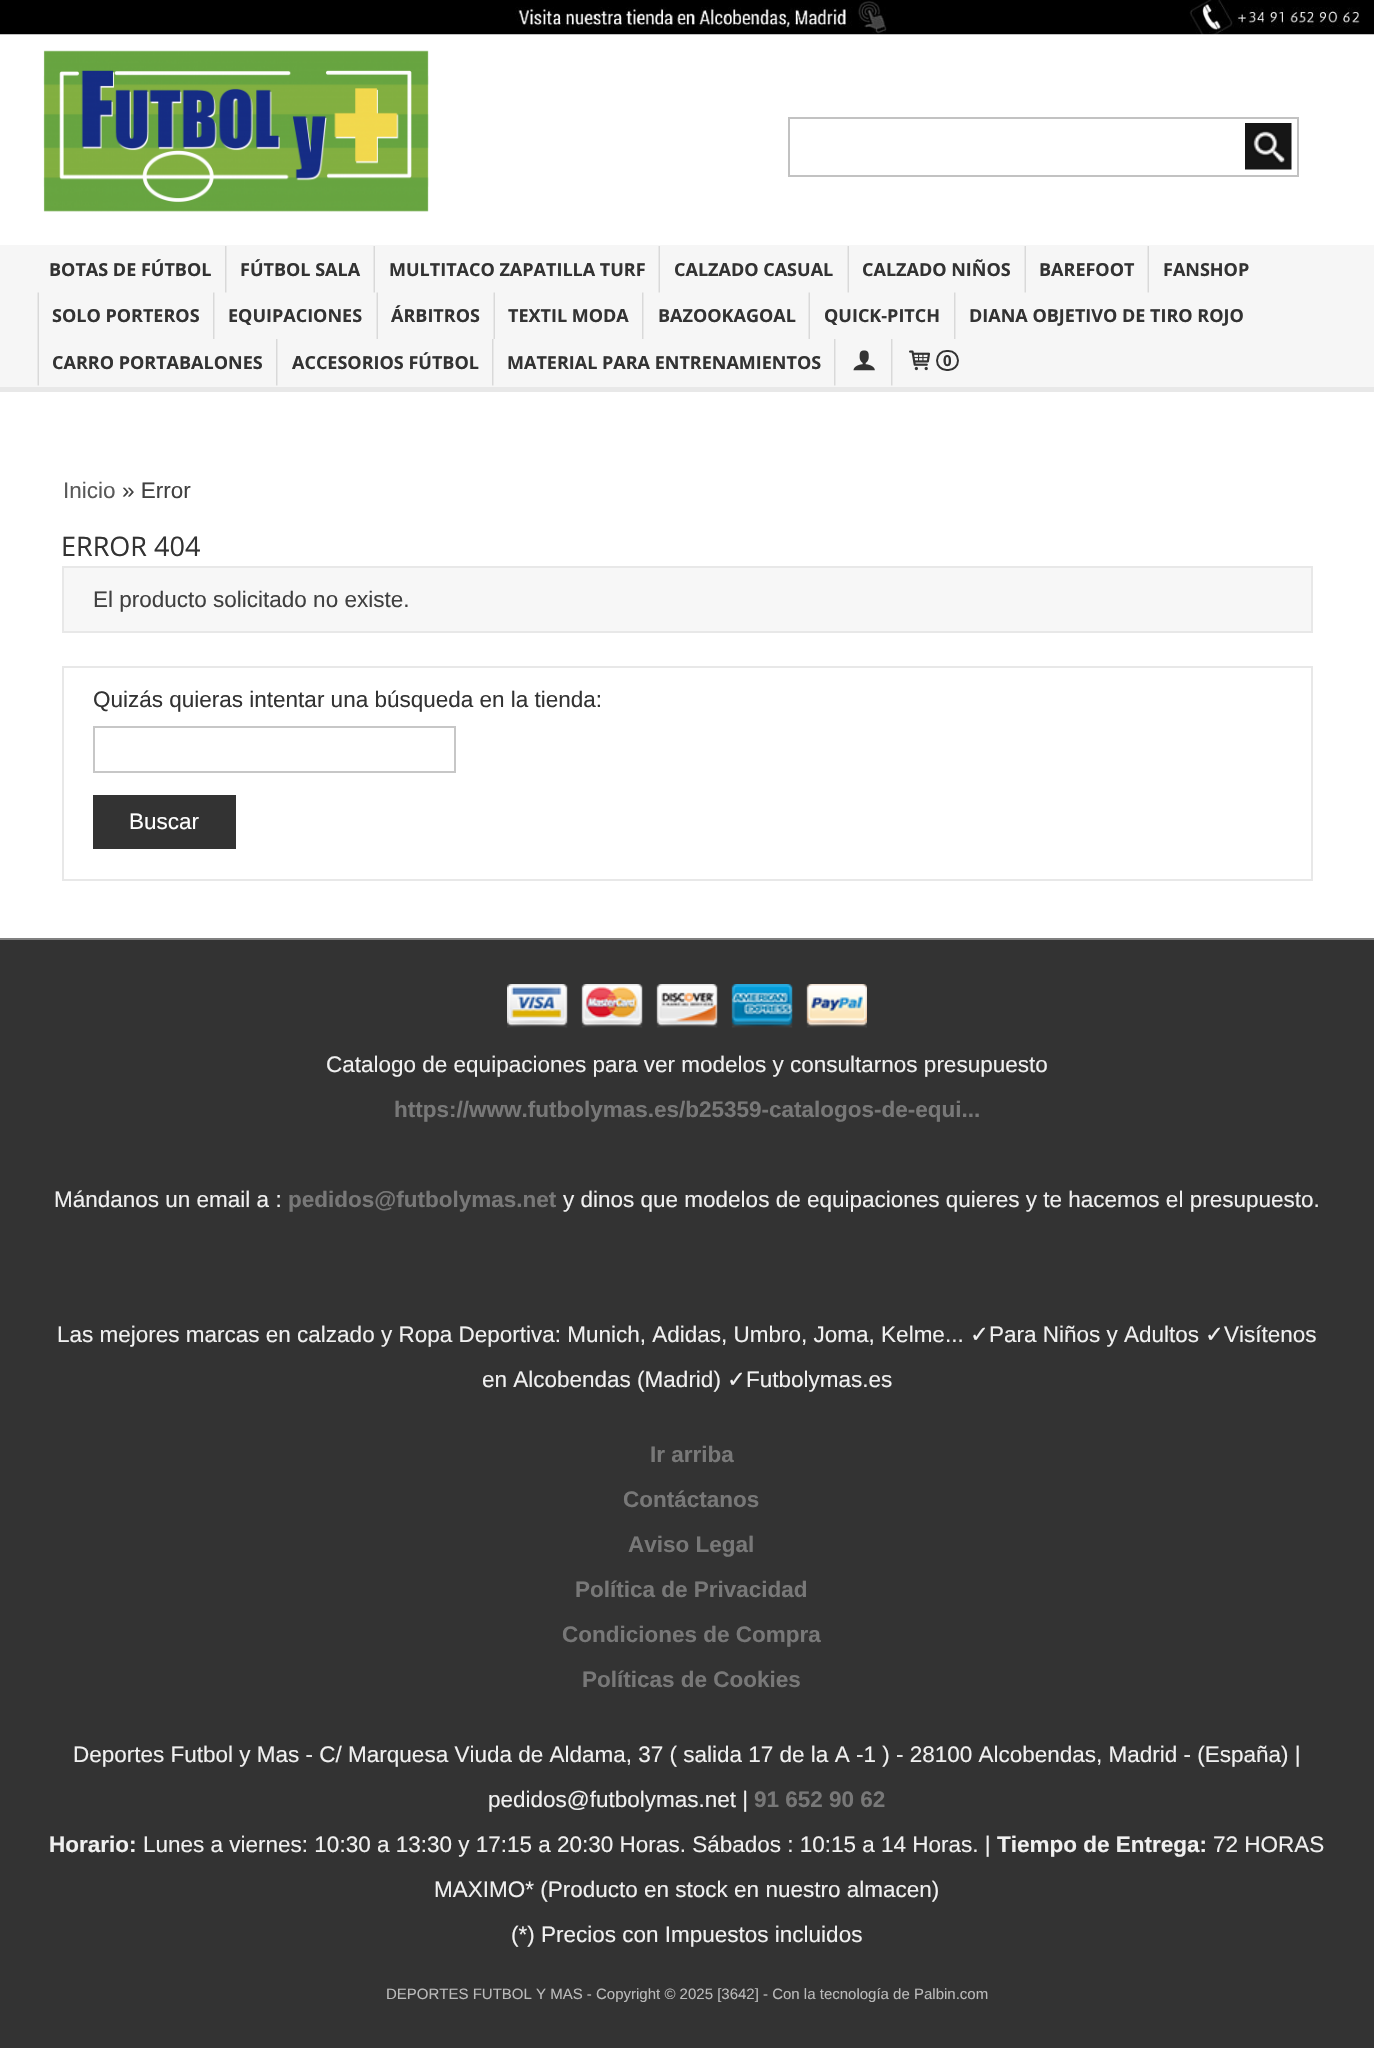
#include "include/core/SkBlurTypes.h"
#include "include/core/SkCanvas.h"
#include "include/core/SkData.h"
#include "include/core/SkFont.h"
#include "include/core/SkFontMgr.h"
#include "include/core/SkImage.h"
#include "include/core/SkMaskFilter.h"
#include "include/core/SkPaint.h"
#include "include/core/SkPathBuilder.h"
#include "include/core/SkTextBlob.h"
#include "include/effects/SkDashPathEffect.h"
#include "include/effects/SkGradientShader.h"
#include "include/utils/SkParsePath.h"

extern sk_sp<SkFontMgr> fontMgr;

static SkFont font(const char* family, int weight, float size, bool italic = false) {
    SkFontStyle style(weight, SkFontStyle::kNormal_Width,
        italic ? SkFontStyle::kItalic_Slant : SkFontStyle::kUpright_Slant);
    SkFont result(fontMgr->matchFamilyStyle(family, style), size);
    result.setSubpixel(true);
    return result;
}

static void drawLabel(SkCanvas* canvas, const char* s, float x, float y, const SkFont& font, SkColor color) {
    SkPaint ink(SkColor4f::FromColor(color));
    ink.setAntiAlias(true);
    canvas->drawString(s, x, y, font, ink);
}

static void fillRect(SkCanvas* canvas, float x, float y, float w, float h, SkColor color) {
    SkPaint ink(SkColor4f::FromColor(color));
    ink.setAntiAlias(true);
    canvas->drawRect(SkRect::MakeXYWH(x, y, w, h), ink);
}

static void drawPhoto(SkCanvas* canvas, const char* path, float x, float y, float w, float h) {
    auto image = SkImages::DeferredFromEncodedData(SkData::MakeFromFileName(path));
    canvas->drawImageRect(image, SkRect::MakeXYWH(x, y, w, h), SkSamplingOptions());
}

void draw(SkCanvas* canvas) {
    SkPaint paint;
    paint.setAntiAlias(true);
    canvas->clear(0xFFFFFFFF);
    drawPhoto(canvas, "assets/img1.png", 0, 0, 1374, 35);
    drawPhoto(canvas, "assets/img2.png", 43, 50, 386, 162);
    paint.setStroke(true);
    paint.setStrokeWidth(2);
    paint.setColor(0xFFC2C2C2);
    canvas->drawRect(SkRect::MakeXYWH(789, 118, 509, 58), paint);
    drawPhoto(canvas, "assets/img3.png", 1245, 123, 47, 47);
    fillRect(canvas, 0, 245, 1374, 142, 0xFFF6F6F6);
    fillRect(canvas, 0, 387, 1374, 5, 0xFFE8E8E8);
    SkFont font1 = font("Open Sans", 700, 18);
    drawLabel(canvas, "BOTAS DE FÚTBOL", 49, 276, font1, 0xFF333333);
    drawPhoto(canvas, "assets/img4.png", 225, 246, 2, 47);
    drawLabel(canvas, "FÚTBOL SALA", 240, 276, font1, 0xFF333333);
    drawPhoto(canvas, "assets/img5.png", 373, 246, 2, 47);
    drawLabel(canvas, "MULTITACO ZAPATILLA TURF", 389, 276, font1, 0xFF333333);
    drawPhoto(canvas, "assets/img5.png", 658, 246, 2, 47);
    drawLabel(canvas, "CALZADO CASUAL", 674, 276, font1, 0xFF333333);
    drawPhoto(canvas, "assets/img5.png", 847, 246, 2, 47);
    drawLabel(canvas, "CALZADO NIÑOS", 862, 276, font1, 0xFF333333);
    drawPhoto(canvas, "assets/img5.png", 1024, 246, 2, 47);
    drawLabel(canvas, "BAREFOOT", 1039, 276, font1, 0xFF333333);
    drawPhoto(canvas, "assets/img5.png", 1147, 246, 2, 47);
    drawLabel(canvas, "FANSHOP", 1163, 276, font1, 0xFF333333);
    drawPhoto(canvas, "assets/img6.png", 37, 292, 2, 47);
    drawLabel(canvas, "SOLO PORTEROS", 52, 322, font1, 0xFF333333);
    drawPhoto(canvas, "assets/img7.png", 213, 292, 2, 47);
    drawLabel(canvas, "EQUIPACIONES", 228, 322, font1, 0xFF333333);
    drawPhoto(canvas, "assets/img6.png", 376, 292, 2, 47);
    drawLabel(canvas, "ÁRBITROS", 391, 322, font1, 0xFF333333);
    drawPhoto(canvas, "assets/img6.png", 493, 292, 2, 47);
    drawLabel(canvas, "TEXTIL MODA", 508, 322, font1, 0xFF333333);
    drawPhoto(canvas, "assets/img7.png", 642, 292, 2, 47);
    drawLabel(canvas, "BAZOOKAGOAL", 658, 322, font1, 0xFF333333);
    drawPhoto(canvas, "assets/img6.png", 808, 292, 2, 47);
    drawLabel(canvas, "QUICK-PITCH", 824, 322, font1, 0xFF333333);
    drawPhoto(canvas, "assets/img7.png", 954, 292, 2, 47);
    drawLabel(canvas, "DIANA OBJETIVO DE TIRO ROJO", 969, 322, font1, 0xFF333333);
    drawPhoto(canvas, "assets/img5.png", 37, 339, 2, 47);
    drawLabel(canvas, "CARRO PORTABALONES", 52, 369, font1, 0xFF333333);
    drawPhoto(canvas, "assets/img4.png", 276, 339, 2, 47);
    drawLabel(canvas, "ACCESORIOS FÚTBOL", 292, 369, font1, 0xFF333333);
    drawPhoto(canvas, "assets/img4.png", 492, 339, 2, 47);
    drawLabel(canvas, "MATERIAL PARA ENTRENAMIENTOS", 507, 369, font1, 0xFF333333);
    drawPhoto(canvas, "assets/img4.png", 834, 339, 2, 47);
    drawPhoto(canvas, "assets/img8.png", 853, 350, 22, 21);
    drawPhoto(canvas, "assets/img4.png", 891, 339, 2, 47);
    drawPhoto(canvas, "assets/img9.png", 909, 350, 21, 21);
    paint.setColor(0xFF333333);
    canvas->drawRoundRect(SkRect::MakeXYWH(937, 351, 21, 19), 9.5f, 9.5f, paint);
    SkFont font2 = font("Open Sans", 700, 15);
    drawLabel(canvas, "0", 943, 366, font2, 0xFF333333);
    SkFont font3 = font("Liberation Sans", 400, 22.5f);
    drawLabel(canvas, "Inicio", 63, 498, font3, 0xFF595959);
    drawLabel(canvas, "» Error", 122, 498, font3, 0xFF404040);
    SkFont font4 = font("Open Sans", 400, 27);
    drawLabel(canvas, "ERROR 404", 61, 556, font4, 0xFF333333);
    paint.setStroke(false);
    paint.setColor(0xFFF7F7F7);
    canvas->drawRect(SkRect::MakeXYWH(63, 567, 1249, 65), paint);
    paint.setStroke(true);
    paint.setColor(0xFFE8E8E8);
    canvas->drawRect(SkRect::MakeXYWH(63, 567, 1249, 65), paint);
    drawLabel(canvas, "El producto solicitado no existe.", 93, 607, font3, 0xFF404040);
    canvas->drawRect(SkRect::MakeXYWH(63, 667, 1249, 213), paint);
    drawLabel(canvas, "Quizás quieras intentar una búsqueda en la tienda:", 93, 707, font3, 0xFF333333);
    paint.setColor(0xFFC7C7C7);
    canvas->drawRect(SkRect::MakeXYWH(94, 727, 361, 45), paint);
    fillRect(canvas, 93, 795, 143, 54, 0xFF333333);
    drawLabel(canvas, "Buscar", 129, 829, font3, 0xFFFFFFFF);
    fillRect(canvas, 0, 940, 1374, 1108, 0xFF333333);
    fillRect(canvas, 0, 938, 1374, 2, 0xFF808080);
    drawPhoto(canvas, "assets/img10.png", 507, 984, 360, 44);
    drawLabel(canvas, "Catalogo de equipaciones para ver modelos y consultarnos presupuesto", 326, 1072, font3, 0xFFF0F0F0);
    SkFont font5 = font("Liberation Sans", 700, 22.5f);
    drawLabel(canvas, "https://www.futbolymas.es/b25359-catalogos-de-equi...", 394, 1117, font5, 0xFF787878);
    drawLabel(canvas, "Mándanos un email a :", 54, 1207, font3, 0xFFF0F0F0);
    drawLabel(canvas, "pedidos@futbolymas.net", 288, 1207, font5, 0xFF787878);
    drawLabel(canvas, "y dinos que modelos de equipaciones quieres y te hacemos el presupuesto.", 563, 1207, font3, 0xFFF0F0F0);
    drawLabel(canvas, "Las mejores marcas en calzado y Ropa Deportiva: Munich, Adidas, Umbro, Joma, Kelme...", 57, 1342, font3, 0xFFF0F0F0);
    SkFont font6 = font("DejaVu Sans", 400, 22.5f);
    drawLabel(canvas, "✓", 970, 1342, font6, 0xFFF0F0F0);
    drawLabel(canvas, "Para Niños y Adultos", 989, 1342, font3, 0xFFF0F0F0);
    drawLabel(canvas, "✓", 1205, 1342, font6, 0xFFF0F0F0);
    drawLabel(canvas, "Visítenos", 1224, 1342, font3, 0xFFF0F0F0);
    drawLabel(canvas, "en Alcobendas (Madrid)", 482, 1387, font3, 0xFFF0F0F0);
    drawLabel(canvas, "✓", 727, 1387, font6, 0xFFF0F0F0);
    drawLabel(canvas, "Futbolymas.es", 746, 1387, font3, 0xFFF0F0F0);
    drawLabel(canvas, "Ir arriba", 650, 1462, font5, 0xFF787878);
    drawLabel(canvas, "Contáctanos", 623, 1507, font5, 0xFF787878);
    drawLabel(canvas, "Aviso Legal", 628, 1552, font5, 0xFF787878);
    drawLabel(canvas, "Política de Privacidad", 575, 1597, font5, 0xFF787878);
    drawLabel(canvas, "Condiciones de Compra", 562, 1642, font5, 0xFF787878);
    drawLabel(canvas, "Políticas de Cookies", 582, 1687, font5, 0xFF787878);
    drawLabel(canvas, "Deportes Futbol y Mas - C/ Marquesa Viuda de Aldama, 37 ( salida 17 de la A -1 ) - 28100 Alcobendas, Madrid - (España) |", 73, 1762, font3, 0xFFF0F0F0);
    drawLabel(canvas, "pedidos@futbolymas.net |", 488, 1807, font3, 0xFFF0F0F0);
    drawLabel(canvas, "91 652 90 62", 754, 1807, font5, 0xFF787878);
    drawLabel(canvas, "Horario:", 49, 1852, font5, 0xFFF0F0F0);
    drawLabel(canvas, "Lunes a viernes: 10:30 a 13:30 y 17:15 a 20:30 Horas. Sábados : 10:15 a 14 Horas. |", 143, 1852, font3, 0xFFF0F0F0);
    drawLabel(canvas, "Tiempo de Entrega:", 997, 1852, font5, 0xFFF0F0F0);
    drawLabel(canvas, "72 HORAS", 1213, 1852, font3, 0xFFF0F0F0);
    drawLabel(canvas, "MAXIMO* (Producto en stock en nuestro almacen)", 434, 1897, font3, 0xFFF0F0F0);
    drawLabel(canvas, "(*) Precios con Impuestos incluidos", 511, 1942, font3, 0xFFF0F0F0);
    SkFont font7 = font("Liberation Sans", 400, 15);
    drawLabel(canvas, "DEPORTES FUTBOL Y MAS - Copyright © 2025 [3642] - Con la tecnología de Palbin.com", 386, 1999, font7, 0xFFBABABA);
}
